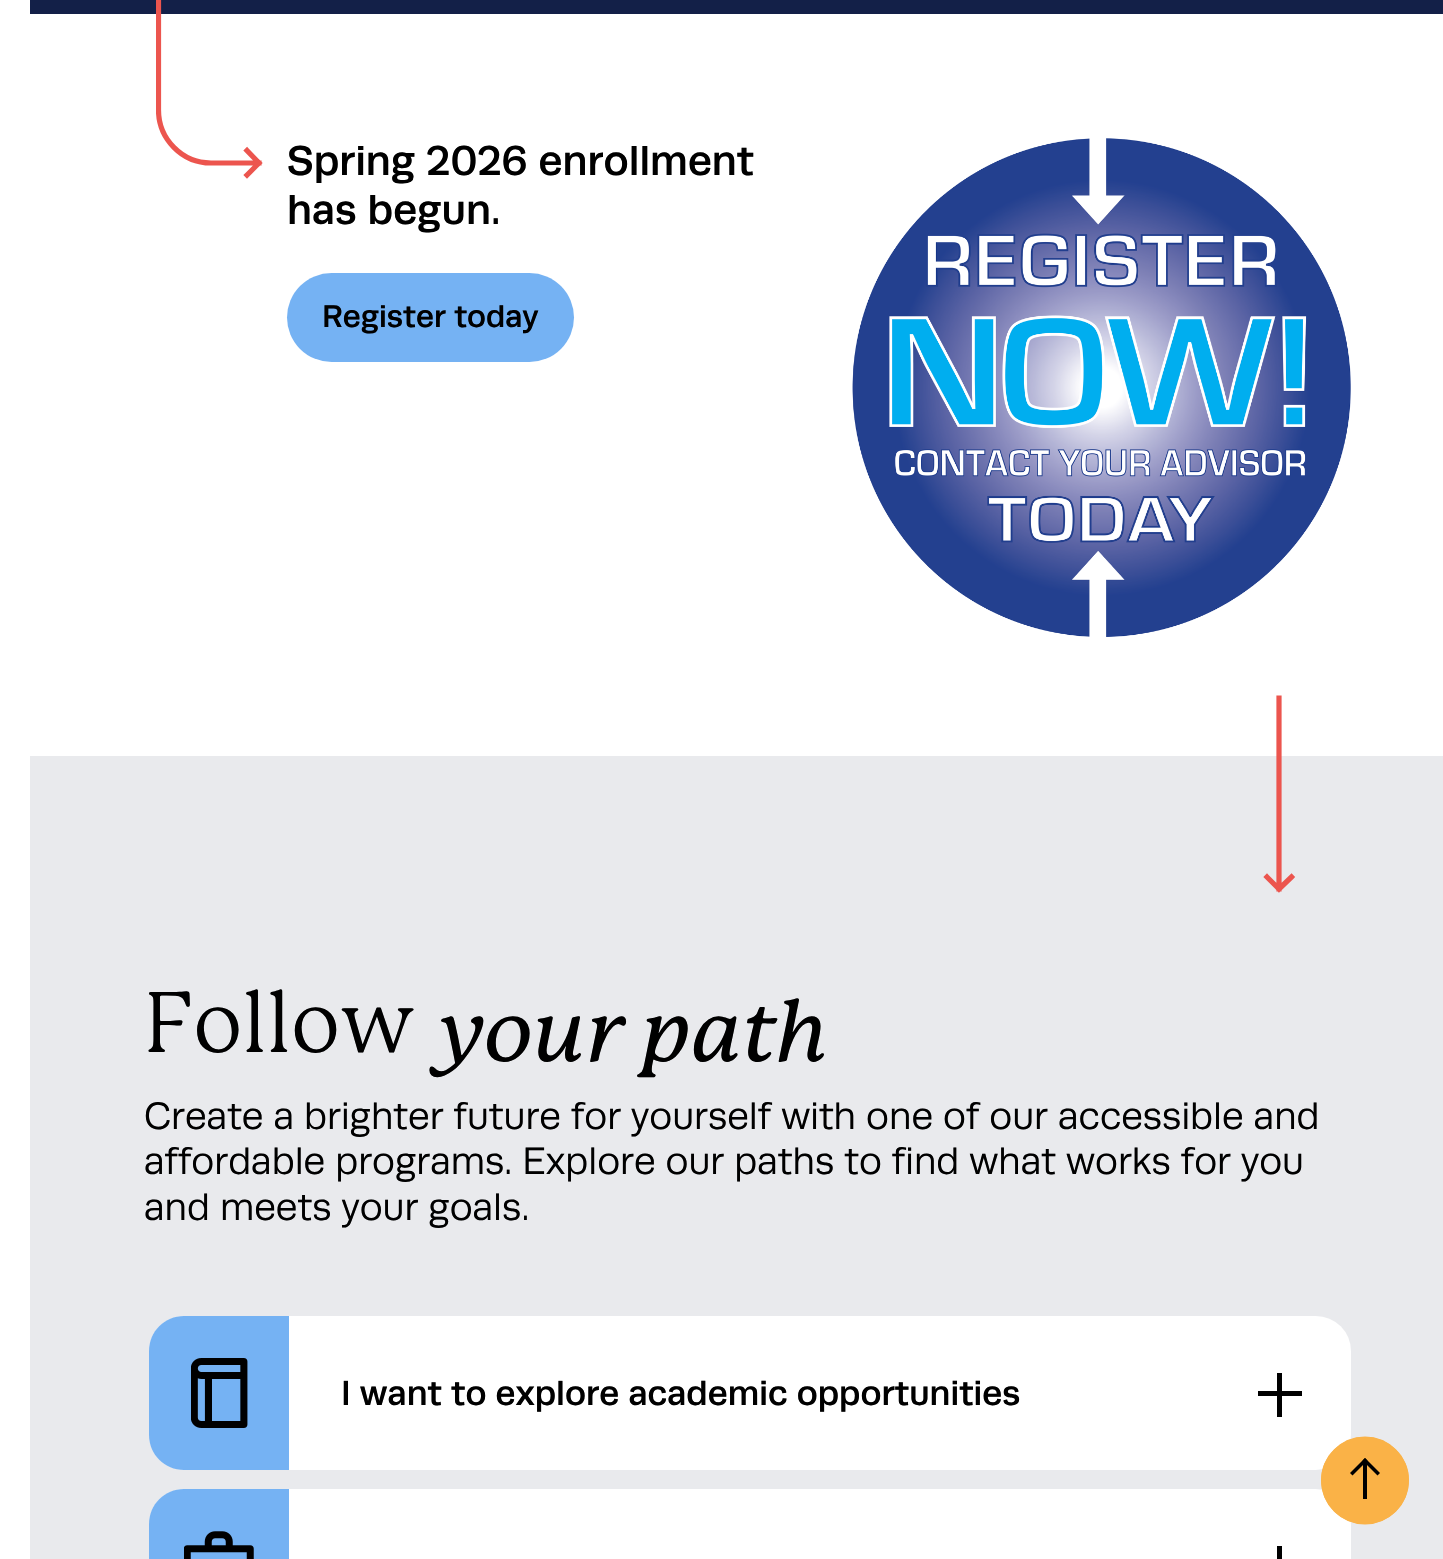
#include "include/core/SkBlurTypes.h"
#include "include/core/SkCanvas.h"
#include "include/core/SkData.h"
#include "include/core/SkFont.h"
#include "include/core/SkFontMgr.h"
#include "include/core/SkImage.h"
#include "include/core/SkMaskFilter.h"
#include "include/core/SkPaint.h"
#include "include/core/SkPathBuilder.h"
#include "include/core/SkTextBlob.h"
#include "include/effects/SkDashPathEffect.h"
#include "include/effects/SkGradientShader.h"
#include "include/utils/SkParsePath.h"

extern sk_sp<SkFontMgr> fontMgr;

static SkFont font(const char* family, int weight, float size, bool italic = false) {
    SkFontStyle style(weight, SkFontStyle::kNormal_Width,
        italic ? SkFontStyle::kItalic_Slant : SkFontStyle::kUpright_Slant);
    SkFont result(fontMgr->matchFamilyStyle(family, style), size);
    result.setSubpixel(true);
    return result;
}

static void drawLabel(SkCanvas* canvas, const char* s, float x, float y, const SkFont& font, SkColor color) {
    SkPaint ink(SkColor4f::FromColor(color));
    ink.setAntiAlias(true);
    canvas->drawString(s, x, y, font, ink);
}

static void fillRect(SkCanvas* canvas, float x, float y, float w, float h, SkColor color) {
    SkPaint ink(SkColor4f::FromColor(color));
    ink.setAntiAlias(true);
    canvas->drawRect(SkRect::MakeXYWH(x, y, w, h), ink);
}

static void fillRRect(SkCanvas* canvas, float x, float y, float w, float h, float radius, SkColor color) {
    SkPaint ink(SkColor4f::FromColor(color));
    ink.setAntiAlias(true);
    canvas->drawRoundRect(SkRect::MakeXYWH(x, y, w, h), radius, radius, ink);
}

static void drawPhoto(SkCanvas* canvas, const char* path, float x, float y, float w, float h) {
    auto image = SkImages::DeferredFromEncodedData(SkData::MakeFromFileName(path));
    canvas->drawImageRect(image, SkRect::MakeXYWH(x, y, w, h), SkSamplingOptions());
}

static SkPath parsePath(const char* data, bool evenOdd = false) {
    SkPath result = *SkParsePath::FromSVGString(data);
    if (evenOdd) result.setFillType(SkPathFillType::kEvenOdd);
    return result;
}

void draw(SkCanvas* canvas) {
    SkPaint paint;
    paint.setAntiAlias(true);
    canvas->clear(0xFFFFFFFF);
    fillRect(canvas, 30, 0, 1413, 14, 0xFF132048);
    canvas->save();
    canvas->clipRect(SkRect::MakeXYWH(156, 0, 108, 180));
    paint.setStroke(true);
    paint.setStrokeWidth(5.2f);
    paint.setStrokeCap(SkPaint::kSquare_Cap);
    paint.setColor(0xFFEC554E);
    paint.setPathEffect(SkDashPathEffect::Make({{295.75f, 295.75f}}, 0));
    canvas->drawPath(parsePath("M247 150.5L259 163M247 175L259 163M259 163H211C182 163 158.5 139 158.5 110V-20"), paint);
    paint.setPathEffect(nullptr);
    canvas->restore();
    SkFont font1 = font("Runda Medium", 500, 42);
    drawLabel(canvas, "Spring 2026 enrollment", 287, 175, font1, 0xFF000000);
    drawLabel(canvas, "has begun.", 287, 224, font1, 0xFF000000);
    fillRRect(canvas, 287, 273, 287, 89, 44.5f, 0xFF75B2F3);
    SkFont font2 = font("Runda Medium", 500, 31.5f);
    drawLabel(canvas, "Register today", 322, 327, font2, 0xFF000000);
    drawPhoto(canvas, "assets/img1.png", 852, 138, 499, 499);
    fillRect(canvas, 30, 756, 1413, 803, 0xFFE9EAED);
    paint.setPathEffect(SkDashPathEffect::Make({{225.75f, 225.75f}}, 0));
    canvas->drawPath(parsePath("M1291.5 877L1279 889M1267 877L1279 889M1279 889V698"), paint);
    paint.setPathEffect(nullptr);
    SkFont font3 = font("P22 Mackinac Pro", 400, 84);
    drawLabel(canvas, "Follow", 144, 1052, font3, 0xFF000000);
    SkFont font4 = font("P22 Mackinac Pro", 500, 84, true);
    drawLabel(canvas, "your path", 439, 1061, font4, 0xFF000000);
    SkFont font5 = font("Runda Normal", 400, 38.5f);
    drawLabel(canvas, "Create a brighter future for yourself with one of our accessible and", 144, 1129, font5, 0xFF000000);
    drawLabel(canvas, "affordable programs. Explore our paths to find what works for you", 144, 1174, font5, 0xFF000000);
    drawLabel(canvas, "and meets your goals.", 144, 1220, font5, 0xFF000000);
    fillRRect(canvas, 149, 1316, 1202, 154, 35, 0xFFFFFFFF);
    paint.setStroke(false);
    paint.setColor(0xFF75B2F3);
    canvas->drawPath(parsePath("M184 1316H289V1470H184C164.5 1470 149 1454.5 149 1435V1351C149 1331.5 164.5 1316 184 1316Z"), paint);
    drawPhoto(canvas, "assets/img2.png", 191, 1358, 57, 70);
    SkFont font6 = font("Runda Medium", 500, 35);
    drawLabel(canvas, "I want to explore academic opportunities", 341, 1405, font6, 0xFF000000);
    fillRect(canvas, 1258, 1391, 44, 5, 0xFF000000);
    fillRect(canvas, 1277, 1373, 5, 44, 0xFF000000);
    fillRRect(canvas, 149, 1489, 1202, 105, 35, 0xFFFFFFFF);
    canvas->drawPath(parsePath("M184 1489H289V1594H184C164.5 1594 149 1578.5 149 1559V1524C149 1504.5 164.5 1489 184 1489Z"), paint);
    drawPhoto(canvas, "assets/img3.png", 184, 1531, 70, 28);
    fillRect(canvas, 1277, 1546, 5, 13, 0xFF000000);
    paint.setColor(0xFFFAB247);
    canvas->drawPath(parsePath("M1321 1480C1321 1456 1341 1437 1365 1437C1389 1437 1409 1456 1409 1480C1409 1505 1389 1524 1365 1524C1341 1524 1321 1505 1321 1480Z"), paint);
    paint.setStroke(true);
    paint.setStrokeWidth(1.8f);
    paint.setStrokeCap(SkPaint::kButt_Cap);
    canvas->drawPath(parsePath("M1322 1480.5C1322 1457 1341.5 1437.5 1365 1437.5C1388.5 1437.5 1408 1457 1408 1480.5C1408 1504 1388.5 1523.5 1365 1523.5C1341.5 1523.5 1322 1504 1322 1480.5Z"), paint);
    fillRect(canvas, 1363, 1460, 4, 39, 0xFF000000);
    paint.setStroke(false);
    paint.setColor(0xFF000000);
    canvas->drawPath(parsePath("M1352.5 1475.5L1350 1473L1365 1458L1367.5 1460.5Z"), paint);
    canvas->drawPath(parsePath("M1377.5 1475.5L1362.5 1460.5L1365 1458L1380 1473Z"), paint);
}
